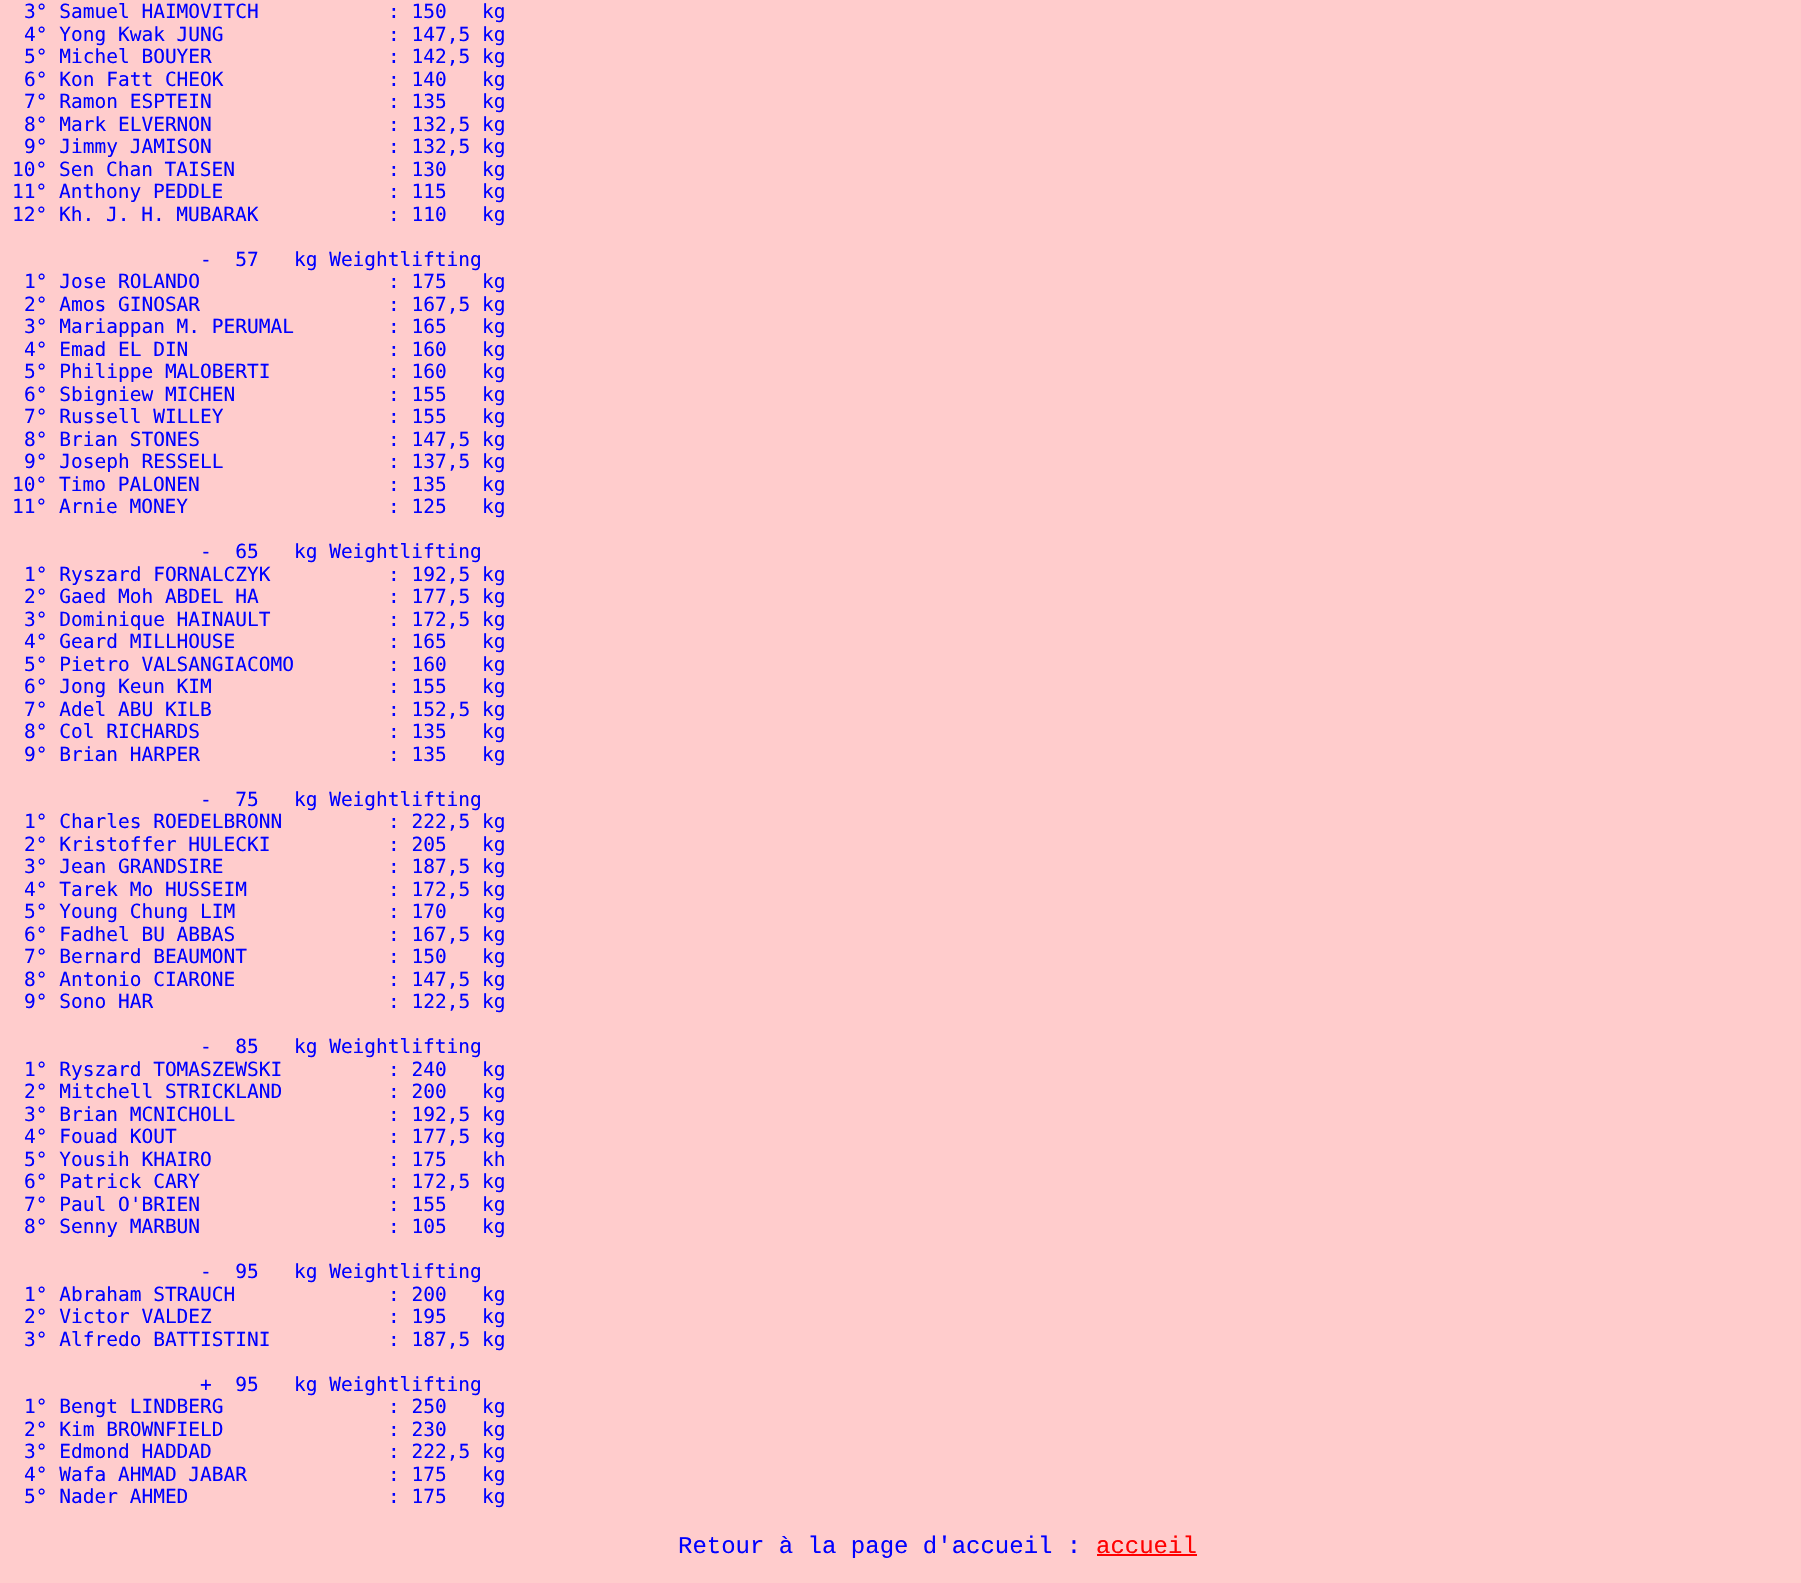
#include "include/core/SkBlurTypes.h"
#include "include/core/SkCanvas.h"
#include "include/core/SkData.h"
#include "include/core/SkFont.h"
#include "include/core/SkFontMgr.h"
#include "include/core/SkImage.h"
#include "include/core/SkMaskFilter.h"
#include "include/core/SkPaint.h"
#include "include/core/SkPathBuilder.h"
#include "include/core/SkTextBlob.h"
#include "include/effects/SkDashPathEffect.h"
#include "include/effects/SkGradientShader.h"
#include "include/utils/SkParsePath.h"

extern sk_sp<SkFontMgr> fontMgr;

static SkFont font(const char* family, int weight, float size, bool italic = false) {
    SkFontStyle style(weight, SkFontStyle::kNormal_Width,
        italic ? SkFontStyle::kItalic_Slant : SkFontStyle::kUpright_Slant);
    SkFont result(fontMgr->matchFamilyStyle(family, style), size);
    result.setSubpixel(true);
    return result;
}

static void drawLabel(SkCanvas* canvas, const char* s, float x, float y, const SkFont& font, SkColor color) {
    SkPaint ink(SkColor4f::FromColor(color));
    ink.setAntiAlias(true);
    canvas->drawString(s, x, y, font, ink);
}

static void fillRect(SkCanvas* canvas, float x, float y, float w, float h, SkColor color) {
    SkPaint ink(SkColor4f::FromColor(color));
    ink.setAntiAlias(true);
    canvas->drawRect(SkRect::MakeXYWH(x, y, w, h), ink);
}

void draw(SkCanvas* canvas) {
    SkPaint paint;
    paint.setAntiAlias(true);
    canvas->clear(0xFFFFCCCC);
    SkFont font1 = font("DejaVu Sans Mono", 400, 19.5f);
    drawLabel(canvas, "3° Samuel HAIMOVITCH", 24, 18, font1, 0xFF0000FF);
    drawLabel(canvas, ": 150   kg", 388, 18, font1, 0xFF0000FF);
    drawLabel(canvas, "4° Yong Kwak JUNG", 24, 41, font1, 0xFF0000FF);
    drawLabel(canvas, ": 147,5 kg", 388, 41, font1, 0xFF0000FF);
    drawLabel(canvas, "5° Michel BOUYER", 24, 63, font1, 0xFF0000FF);
    drawLabel(canvas, ": 142,5 kg", 388, 63, font1, 0xFF0000FF);
    drawLabel(canvas, "6° Kon Fatt CHEOK", 24, 86, font1, 0xFF0000FF);
    drawLabel(canvas, ": 140   kg", 388, 86, font1, 0xFF0000FF);
    drawLabel(canvas, "7° Ramon ESPTEIN", 24, 108, font1, 0xFF0000FF);
    drawLabel(canvas, ": 135   kg", 388, 108, font1, 0xFF0000FF);
    drawLabel(canvas, "8° Mark ELVERNON", 24, 131, font1, 0xFF0000FF);
    drawLabel(canvas, ": 132,5 kg", 388, 131, font1, 0xFF0000FF);
    drawLabel(canvas, "9° Jimmy JAMISON", 24, 153, font1, 0xFF0000FF);
    drawLabel(canvas, ": 132,5 kg", 388, 153, font1, 0xFF0000FF);
    drawLabel(canvas, "10° Sen Chan TAISEN", 12, 176, font1, 0xFF0000FF);
    drawLabel(canvas, ": 130   kg", 388, 176, font1, 0xFF0000FF);
    drawLabel(canvas, "11° Anthony PEDDLE", 12, 198, font1, 0xFF0000FF);
    drawLabel(canvas, ": 115   kg", 388, 198, font1, 0xFF0000FF);
    drawLabel(canvas, "12° Kh. J. H. MUBARAK", 12, 221, font1, 0xFF0000FF);
    drawLabel(canvas, ": 110   kg", 388, 221, font1, 0xFF0000FF);
    drawLabel(canvas, "-  57   kg Weightlifting", 200, 266, font1, 0xFF0000FF);
    drawLabel(canvas, "1° Jose ROLANDO", 24, 288, font1, 0xFF0000FF);
    drawLabel(canvas, ": 175   kg", 388, 288, font1, 0xFF0000FF);
    drawLabel(canvas, "2° Amos GINOSAR", 24, 311, font1, 0xFF0000FF);
    drawLabel(canvas, ": 167,5 kg", 388, 311, font1, 0xFF0000FF);
    drawLabel(canvas, "3° Mariappan M. PERUMAL", 24, 333, font1, 0xFF0000FF);
    drawLabel(canvas, ": 165   kg", 388, 333, font1, 0xFF0000FF);
    drawLabel(canvas, "4° Emad EL DIN", 24, 356, font1, 0xFF0000FF);
    drawLabel(canvas, ": 160   kg", 388, 356, font1, 0xFF0000FF);
    drawLabel(canvas, "5° Philippe MALOBERTI", 24, 378, font1, 0xFF0000FF);
    drawLabel(canvas, ": 160   kg", 388, 378, font1, 0xFF0000FF);
    drawLabel(canvas, "6° Sbigniew MICHEN", 24, 401, font1, 0xFF0000FF);
    drawLabel(canvas, ": 155   kg", 388, 401, font1, 0xFF0000FF);
    drawLabel(canvas, "7° Russell WILLEY", 24, 423, font1, 0xFF0000FF);
    drawLabel(canvas, ": 155   kg", 388, 423, font1, 0xFF0000FF);
    drawLabel(canvas, "8° Brian STONES", 24, 446, font1, 0xFF0000FF);
    drawLabel(canvas, ": 147,5 kg", 388, 446, font1, 0xFF0000FF);
    drawLabel(canvas, "9° Joseph RESSELL", 24, 468, font1, 0xFF0000FF);
    drawLabel(canvas, ": 137,5 kg", 388, 468, font1, 0xFF0000FF);
    drawLabel(canvas, "10° Timo PALONEN", 12, 491, font1, 0xFF0000FF);
    drawLabel(canvas, ": 135   kg", 388, 491, font1, 0xFF0000FF);
    drawLabel(canvas, "11° Arnie MONEY", 12, 513, font1, 0xFF0000FF);
    drawLabel(canvas, ": 125   kg", 388, 513, font1, 0xFF0000FF);
    drawLabel(canvas, "-  65   kg Weightlifting", 200, 558, font1, 0xFF0000FF);
    drawLabel(canvas, "1° Ryszard FORNALCZYK", 24, 581, font1, 0xFF0000FF);
    drawLabel(canvas, ": 192,5 kg", 388, 581, font1, 0xFF0000FF);
    drawLabel(canvas, "2° Gaed Moh ABDEL HA", 24, 603, font1, 0xFF0000FF);
    drawLabel(canvas, ": 177,5 kg", 388, 603, font1, 0xFF0000FF);
    drawLabel(canvas, "3° Dominique HAINAULT", 24, 626, font1, 0xFF0000FF);
    drawLabel(canvas, ": 172,5 kg", 388, 626, font1, 0xFF0000FF);
    drawLabel(canvas, "4° Geard MILLHOUSE", 24, 648, font1, 0xFF0000FF);
    drawLabel(canvas, ": 165   kg", 388, 648, font1, 0xFF0000FF);
    drawLabel(canvas, "5° Pietro VALSANGIACOMO", 24, 671, font1, 0xFF0000FF);
    drawLabel(canvas, ": 160   kg", 388, 671, font1, 0xFF0000FF);
    drawLabel(canvas, "6° Jong Keun KIM", 24, 693, font1, 0xFF0000FF);
    drawLabel(canvas, ": 155   kg", 388, 693, font1, 0xFF0000FF);
    drawLabel(canvas, "7° Adel ABU KILB", 24, 716, font1, 0xFF0000FF);
    drawLabel(canvas, ": 152,5 kg", 388, 716, font1, 0xFF0000FF);
    drawLabel(canvas, "8° Col RICHARDS", 24, 738, font1, 0xFF0000FF);
    drawLabel(canvas, ": 135   kg", 388, 738, font1, 0xFF0000FF);
    drawLabel(canvas, "9° Brian HARPER", 24, 761, font1, 0xFF0000FF);
    drawLabel(canvas, ": 135   kg", 388, 761, font1, 0xFF0000FF);
    drawLabel(canvas, "-  75   kg Weightlifting", 200, 806, font1, 0xFF0000FF);
    drawLabel(canvas, "1° Charles ROEDELBRONN", 24, 828, font1, 0xFF0000FF);
    drawLabel(canvas, ": 222,5 kg", 388, 828, font1, 0xFF0000FF);
    drawLabel(canvas, "2° Kristoffer HULECKI", 24, 851, font1, 0xFF0000FF);
    drawLabel(canvas, ": 205   kg", 388, 851, font1, 0xFF0000FF);
    drawLabel(canvas, "3° Jean GRANDSIRE", 24, 873, font1, 0xFF0000FF);
    drawLabel(canvas, ": 187,5 kg", 388, 873, font1, 0xFF0000FF);
    drawLabel(canvas, "4° Tarek Mo HUSSEIM", 24, 896, font1, 0xFF0000FF);
    drawLabel(canvas, ": 172,5 kg", 388, 896, font1, 0xFF0000FF);
    drawLabel(canvas, "5° Young Chung LIM", 24, 918, font1, 0xFF0000FF);
    drawLabel(canvas, ": 170   kg", 388, 918, font1, 0xFF0000FF);
    drawLabel(canvas, "6° Fadhel BU ABBAS", 24, 941, font1, 0xFF0000FF);
    drawLabel(canvas, ": 167,5 kg", 388, 941, font1, 0xFF0000FF);
    drawLabel(canvas, "7° Bernard BEAUMONT", 24, 963, font1, 0xFF0000FF);
    drawLabel(canvas, ": 150   kg", 388, 963, font1, 0xFF0000FF);
    drawLabel(canvas, "8° Antonio CIARONE", 24, 986, font1, 0xFF0000FF);
    drawLabel(canvas, ": 147,5 kg", 388, 986, font1, 0xFF0000FF);
    drawLabel(canvas, "9° Sono HAR", 24, 1008, font1, 0xFF0000FF);
    drawLabel(canvas, ": 122,5 kg", 388, 1008, font1, 0xFF0000FF);
    drawLabel(canvas, "-  85   kg Weightlifting", 200, 1053, font1, 0xFF0000FF);
    drawLabel(canvas, "1° Ryszard TOMASZEWSKI", 24, 1076, font1, 0xFF0000FF);
    drawLabel(canvas, ": 240   kg", 388, 1076, font1, 0xFF0000FF);
    drawLabel(canvas, "2° Mitchell STRICKLAND", 24, 1098, font1, 0xFF0000FF);
    drawLabel(canvas, ": 200   kg", 388, 1098, font1, 0xFF0000FF);
    drawLabel(canvas, "3° Brian MCNICHOLL", 24, 1121, font1, 0xFF0000FF);
    drawLabel(canvas, ": 192,5 kg", 388, 1121, font1, 0xFF0000FF);
    drawLabel(canvas, "4° Fouad KOUT", 24, 1143, font1, 0xFF0000FF);
    drawLabel(canvas, ": 177,5 kg", 388, 1143, font1, 0xFF0000FF);
    drawLabel(canvas, "5° Yousih KHAIRO", 24, 1166, font1, 0xFF0000FF);
    drawLabel(canvas, ": 175   kh", 388, 1166, font1, 0xFF0000FF);
    drawLabel(canvas, "6° Patrick CARY", 24, 1188, font1, 0xFF0000FF);
    drawLabel(canvas, ": 172,5 kg", 388, 1188, font1, 0xFF0000FF);
    drawLabel(canvas, "7° Paul O'BRIEN", 24, 1211, font1, 0xFF0000FF);
    drawLabel(canvas, ": 155   kg", 388, 1211, font1, 0xFF0000FF);
    drawLabel(canvas, "8° Senny MARBUN", 24, 1233, font1, 0xFF0000FF);
    drawLabel(canvas, ": 105   kg", 388, 1233, font1, 0xFF0000FF);
    drawLabel(canvas, "-  95   kg Weightlifting", 200, 1278, font1, 0xFF0000FF);
    drawLabel(canvas, "1° Abraham STRAUCH", 24, 1301, font1, 0xFF0000FF);
    drawLabel(canvas, ": 200   kg", 388, 1301, font1, 0xFF0000FF);
    drawLabel(canvas, "2° Victor VALDEZ", 24, 1323, font1, 0xFF0000FF);
    drawLabel(canvas, ": 195   kg", 388, 1323, font1, 0xFF0000FF);
    drawLabel(canvas, "3° Alfredo BATTISTINI", 24, 1346, font1, 0xFF0000FF);
    drawLabel(canvas, ": 187,5 kg", 388, 1346, font1, 0xFF0000FF);
    drawLabel(canvas, "+  95   kg Weightlifting", 200, 1391, font1, 0xFF0000FF);
    drawLabel(canvas, "1° Bengt LINDBERG", 24, 1413, font1, 0xFF0000FF);
    drawLabel(canvas, ": 250   kg", 388, 1413, font1, 0xFF0000FF);
    drawLabel(canvas, "2° Kim BROWNFIELD", 24, 1436, font1, 0xFF0000FF);
    drawLabel(canvas, ": 230   kg", 388, 1436, font1, 0xFF0000FF);
    drawLabel(canvas, "3° Edmond HADDAD", 24, 1458, font1, 0xFF0000FF);
    drawLabel(canvas, ": 222,5 kg", 388, 1458, font1, 0xFF0000FF);
    drawLabel(canvas, "4° Wafa AHMAD JABAR", 24, 1481, font1, 0xFF0000FF);
    drawLabel(canvas, ": 175   kg", 388, 1481, font1, 0xFF0000FF);
    drawLabel(canvas, "5° Nader AHMED", 24, 1503, font1, 0xFF0000FF);
    drawLabel(canvas, ": 175   kg", 388, 1503, font1, 0xFF0000FF);
    SkFont font2 = font("Liberation Mono", 400, 24);
    drawLabel(canvas, "Retour à la page d'accueil :", 678, 1553, font2, 0xFF0000FF);
    drawLabel(canvas, "accueil", 1096, 1553, font2, 0xFFFF0000);
    fillRect(canvas, 1097, 1554, 100, 2, 0xFFFF0000);
}
